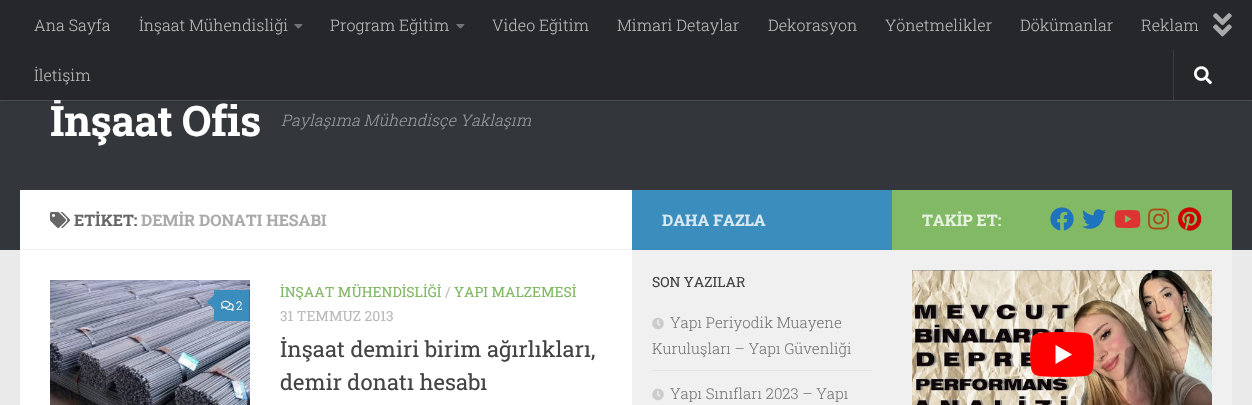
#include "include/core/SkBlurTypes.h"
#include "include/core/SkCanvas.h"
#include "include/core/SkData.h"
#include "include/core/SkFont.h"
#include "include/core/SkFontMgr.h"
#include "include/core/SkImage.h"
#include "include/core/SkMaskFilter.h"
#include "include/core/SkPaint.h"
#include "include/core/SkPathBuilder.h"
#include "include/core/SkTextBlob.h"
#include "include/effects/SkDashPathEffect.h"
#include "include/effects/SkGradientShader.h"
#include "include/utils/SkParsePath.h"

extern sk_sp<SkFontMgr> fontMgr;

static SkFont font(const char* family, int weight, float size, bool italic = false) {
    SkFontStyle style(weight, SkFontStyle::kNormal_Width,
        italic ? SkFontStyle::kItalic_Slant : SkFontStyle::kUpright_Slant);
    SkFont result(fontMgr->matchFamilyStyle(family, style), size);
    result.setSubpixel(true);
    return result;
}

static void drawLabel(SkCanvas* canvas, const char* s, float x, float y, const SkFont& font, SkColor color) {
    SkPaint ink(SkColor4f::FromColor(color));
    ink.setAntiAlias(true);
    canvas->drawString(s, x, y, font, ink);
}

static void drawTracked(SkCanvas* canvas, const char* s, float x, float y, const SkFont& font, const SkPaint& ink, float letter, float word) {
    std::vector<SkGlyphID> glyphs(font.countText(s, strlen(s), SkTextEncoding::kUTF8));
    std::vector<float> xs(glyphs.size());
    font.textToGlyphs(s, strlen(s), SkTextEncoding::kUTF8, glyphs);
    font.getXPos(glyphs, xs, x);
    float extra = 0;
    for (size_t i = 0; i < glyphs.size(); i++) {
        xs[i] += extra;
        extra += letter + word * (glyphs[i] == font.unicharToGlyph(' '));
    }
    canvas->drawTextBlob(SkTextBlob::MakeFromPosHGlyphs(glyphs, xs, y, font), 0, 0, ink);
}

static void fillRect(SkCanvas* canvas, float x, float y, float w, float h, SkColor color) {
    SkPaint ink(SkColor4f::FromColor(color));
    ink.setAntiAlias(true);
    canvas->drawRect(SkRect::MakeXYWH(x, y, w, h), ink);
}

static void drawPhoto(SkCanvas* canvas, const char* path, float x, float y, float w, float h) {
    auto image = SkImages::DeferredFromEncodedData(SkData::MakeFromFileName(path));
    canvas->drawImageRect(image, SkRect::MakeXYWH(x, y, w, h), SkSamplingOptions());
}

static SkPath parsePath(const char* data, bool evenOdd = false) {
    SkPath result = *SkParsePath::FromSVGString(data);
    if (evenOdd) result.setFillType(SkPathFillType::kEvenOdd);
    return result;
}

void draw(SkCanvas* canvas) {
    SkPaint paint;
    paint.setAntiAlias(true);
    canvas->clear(0xFFEAEAEA);
    fillRect(canvas, 0, 100, 1252, 150, 0xFF33363B);
    SkFont font1 = font("Roboto Slab", 700, 42);
    paint.setColor(0xFFFFFFFF);
    drawTracked(canvas, "İnşaat Ofis", 50, 136, font1, paint, -0.5f, 0);
    fillRect(canvas, 0, 100, 1252, 1, 0x26FFFFFF);
    paint.setColor(0x33000000);
    paint.setMaskFilter(SkMaskFilter::MakeBlur(kNormal_SkBlurStyle, 2.5f));
    canvas->drawRect(SkRect::MakeXYWH(0, 0, 1252, 100), paint);
    paint.setMaskFilter(nullptr);
    fillRect(canvas, 0, 0, 1252, 100, 0xFF26272B);
    SkFont font2 = font("Roboto Slab", 300, 16);
    drawLabel(canvas, "Ana Sayfa", 34, 31, font2, 0xFFBBBBBB);
    drawLabel(canvas, "İnşaat Mühendisliği", 139, 31, font2, 0xFFBBBBBB);
    drawPhoto(canvas, "assets/img1.png", 294, 24, 9, 5);
    drawLabel(canvas, "Program Eğitim", 330, 31, font2, 0xFFBBBBBB);
    drawPhoto(canvas, "assets/img1.png", 456, 24, 9, 5);
    drawLabel(canvas, "Video Eğitim", 492, 31, font2, 0xFFBBBBBB);
    drawLabel(canvas, "Mimari Detaylar", 617, 31, font2, 0xFFBBBBBB);
    drawLabel(canvas, "Dekorasyon", 768, 31, font2, 0xFFBBBBBB);
    drawLabel(canvas, "Yönetmelikler", 885, 31, font2, 0xFFBBBBBB);
    drawLabel(canvas, "Dökümanlar", 1020, 31, font2, 0xFFBBBBBB);
    drawLabel(canvas, "Reklam", 1141, 31, font2, 0xFFBBBBBB);
    drawLabel(canvas, "İletişim", 34, 81, font2, 0xFFBBBBBB);
    drawPhoto(canvas, "assets/img2.png", 1213, 13, 19, 24);
    fillRect(canvas, 1173, 50, 1, 50, 0xFF3C3D40);
    drawPhoto(canvas, "assets/img3.png", 1194, 66, 18, 19);
    SkFont font3 = font("Roboto Slab", 300, 16, true);
    drawLabel(canvas, "Paylaşıma Mühendisçe Yaklaşım", 281, 126, font3, 0xFF999B9D);
    fillRect(canvas, 20, 190, 612, 215, 0xFFFFFFFF);
    fillRect(canvas, 20, 249, 612, 1, 0xFFEEEEEE);
    drawPhoto(canvas, "assets/img4.png", 50, 212, 20, 16);
    SkFont font4 = font("Roboto Slab", 700, 16);
    drawLabel(canvas, "ETİKET:", 74, 226, font4, 0xFF666666);
    drawLabel(canvas, "DEMİR DONATI HESABI", 141, 226, font4, 0xFFAAAAAA);
    drawPhoto(canvas, "assets/img5.png", 50, 280, 200, 125);
    fillRect(canvas, 214, 290, 35, 31, 0xFF3B8DBD);
    fillRect(canvas, 249, 290, 1, 31, 0xFF2F7197);
    paint.setColor(0xFF3B8DBD);
    canvas->drawPath(parsePath("M216 293V311L207 302Z"), paint);
    drawPhoto(canvas, "assets/img6.png", 221, 300, 13, 11);
    SkFont font5 = font("Roboto Slab", 300, 12);
    drawLabel(canvas, "2", 236, 310, font5, 0xFFFFFFFF);
    SkFont font6 = font("Roboto Slab", 400, 14);
    drawLabel(canvas, "İNŞAAT MÜHENDİSLİĞİ", 280, 297, font6, 0xFF82B965);
    drawLabel(canvas, "/", 445, 297, font6, 0xFFBBBBBB);
    drawLabel(canvas, "YAPI MALZEMESİ", 454, 297, font6, 0xFF82B965);
    drawLabel(canvas, "31 TEMMUZ 2013", 280, 321, font6, 0xFFBBBBBB);
    SkFont font7 = font("Roboto Slab", 400, 22);
    drawLabel(canvas, "İnşaat demiri birim ağırlıkları,", 280, 357, font7, 0xFF444444);
    drawLabel(canvas, "demir donatı hesabı", 280, 390, font7, 0xFF444444);
    fillRect(canvas, 632, 190, 260, 60, 0xFF3B8DBD);
    drawLabel(canvas, "DAHA FAZLA", 662, 226, font4, 0xFFD8E8F2);
    fillRect(canvas, 632, 250, 600, 155, 0xFFF0F0F0);
    drawLabel(canvas, "SON YAZILAR", 652, 287, font6, 0xFF444444);
    fillRect(canvas, 652, 370, 220, 1, 0xFFE4E4E4);
    drawPhoto(canvas, "assets/img7.png", 652, 317, 12, 13);
    SkFont font8 = font("Roboto Slab", 300, 15);
    drawLabel(canvas, "Yapı Periyodik Muayene", 670, 328, font8, 0xFF777777);
    drawLabel(canvas, "Kuruluşları – Yapı Güvenliği", 652, 354, font8, 0xFF777777);
    drawPhoto(canvas, "assets/img7.png", 652, 388, 12, 13);
    drawLabel(canvas, "Yapı Sınıfları 2023 – Yapı", 670, 399, font8, 0xFF777777);
    fillRect(canvas, 892, 190, 340, 60, 0xFF82B965);
    drawLabel(canvas, "TAKİP ET:", 922, 226, font4, 0xFFE6F1E0);
    drawPhoto(canvas, "assets/img8.png", 1050, 207, 24, 24);
    drawPhoto(canvas, "assets/img9.png", 1082, 209, 24, 20);
    drawPhoto(canvas, "assets/img10.png", 1114, 210, 27, 18);
    drawPhoto(canvas, "assets/img11.png", 1148, 208, 22, 22);
    drawPhoto(canvas, "assets/img12.png", 1178, 207, 24, 24);
    drawPhoto(canvas, "assets/img13.png", 912, 270, 300, 135);
    drawPhoto(canvas, "assets/img14.png", 1030, 332, 64, 45);
}
